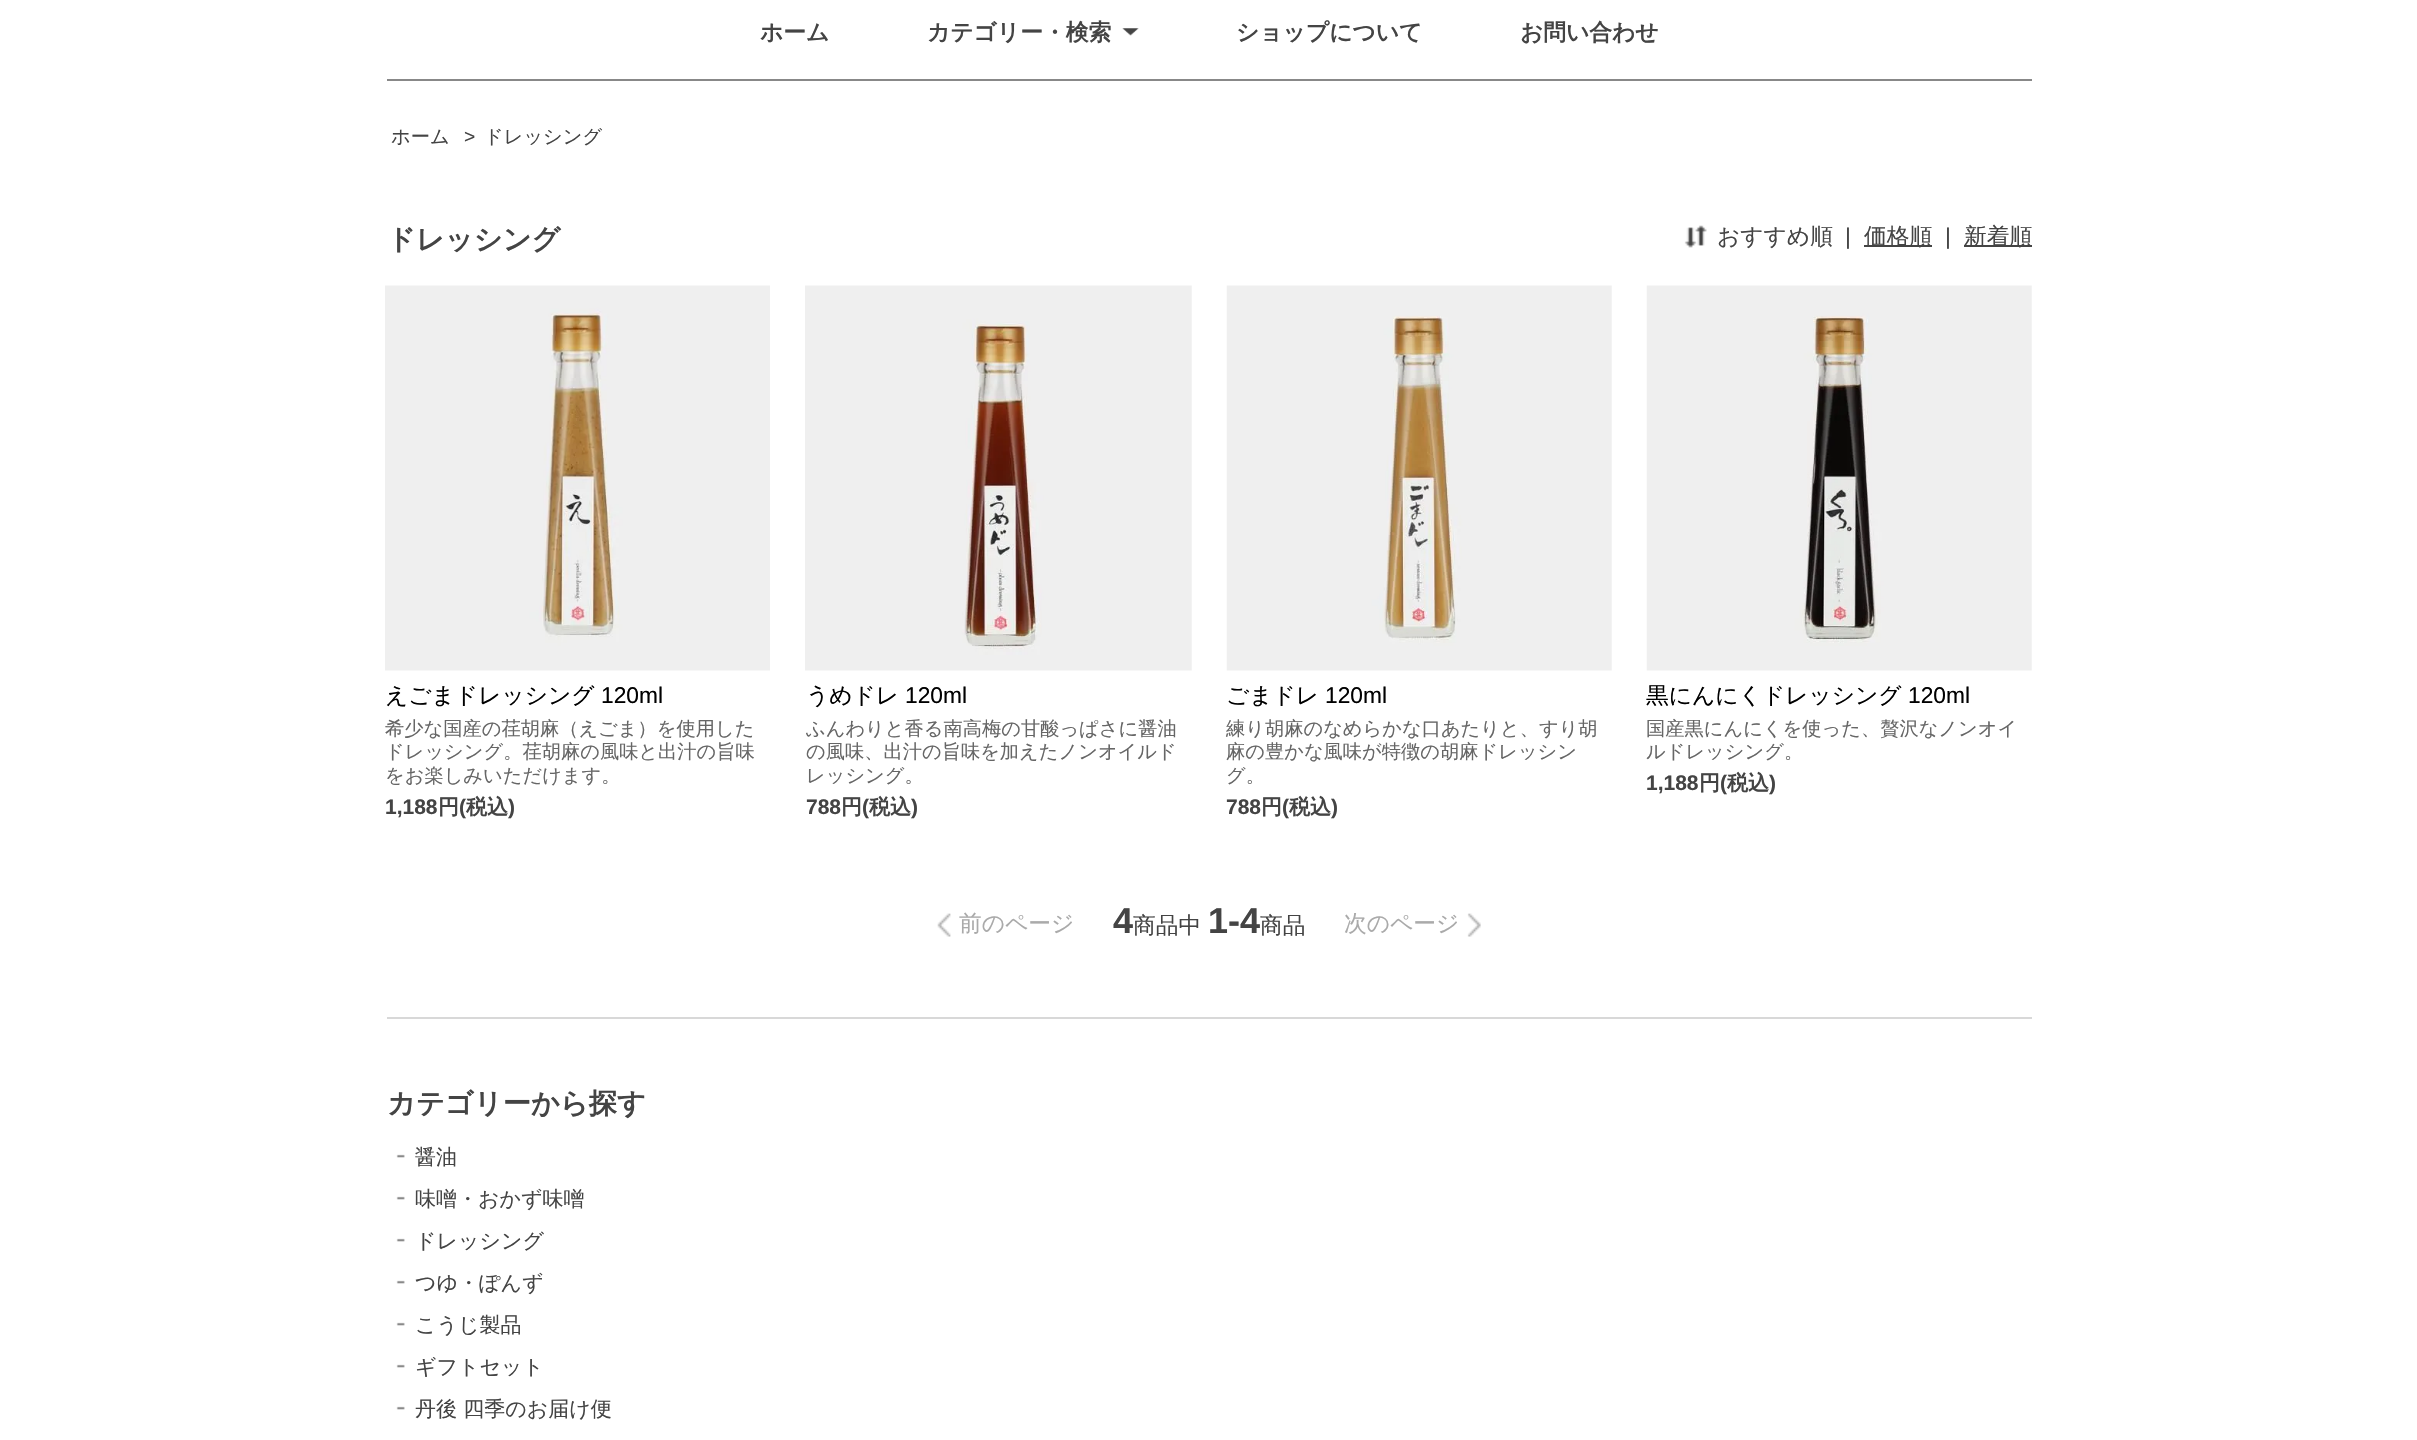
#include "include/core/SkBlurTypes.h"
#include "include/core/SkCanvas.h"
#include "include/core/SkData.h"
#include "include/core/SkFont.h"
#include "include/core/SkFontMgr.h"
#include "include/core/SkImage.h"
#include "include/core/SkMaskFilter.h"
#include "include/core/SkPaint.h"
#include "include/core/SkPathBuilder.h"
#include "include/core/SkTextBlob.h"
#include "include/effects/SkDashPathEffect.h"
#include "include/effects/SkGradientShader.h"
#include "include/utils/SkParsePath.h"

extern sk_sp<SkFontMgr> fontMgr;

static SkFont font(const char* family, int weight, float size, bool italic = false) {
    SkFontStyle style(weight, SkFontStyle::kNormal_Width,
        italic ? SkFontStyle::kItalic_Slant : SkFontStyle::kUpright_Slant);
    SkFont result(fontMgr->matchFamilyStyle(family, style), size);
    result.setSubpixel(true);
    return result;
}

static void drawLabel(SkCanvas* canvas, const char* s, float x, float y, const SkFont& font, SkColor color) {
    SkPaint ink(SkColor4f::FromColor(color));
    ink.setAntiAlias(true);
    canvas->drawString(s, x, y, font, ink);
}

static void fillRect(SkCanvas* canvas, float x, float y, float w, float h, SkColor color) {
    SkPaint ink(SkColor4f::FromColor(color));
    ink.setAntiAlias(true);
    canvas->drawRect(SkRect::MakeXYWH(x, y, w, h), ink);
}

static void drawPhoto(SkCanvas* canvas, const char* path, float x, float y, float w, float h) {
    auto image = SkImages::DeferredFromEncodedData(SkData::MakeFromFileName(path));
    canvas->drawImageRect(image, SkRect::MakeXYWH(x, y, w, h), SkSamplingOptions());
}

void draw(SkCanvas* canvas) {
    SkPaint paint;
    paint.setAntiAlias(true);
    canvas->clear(0xFFFFFFFF);
    fillRect(canvas, 387, 79, 1645, 2, 0xFF888888);
    SkFont font1 = font("WenQuanYi Zen Hei", 700, 22.75f);
    drawLabel(canvas, "ホーム", 760, 40, font1, 0xFF444444);
    drawLabel(canvas, "カテゴリー・検索", 927, 40, font1, 0xFF444444);
    drawPhoto(canvas, "assets/img1.png", 1122, 28, 17, 8);
    drawLabel(canvas, "ショップについて", 1236, 40, font1, 0xFF444444);
    drawLabel(canvas, "お問い合わせ", 1520, 40, font1, 0xFF444444);
    SkFont font2 = font("WenQuanYi Zen Hei", 500, 19.25f);
    drawLabel(canvas, "ホーム", 391, 143, font2, 0xFF444444);
    SkFont font3 = font("Liberation Sans", 400, 19.25f);
    drawLabel(canvas, ">", 464, 143, font3, 0xFF444444);
    drawLabel(canvas, "ドレッシング", 484, 143, font2, 0xFF444444);
    SkFont font4 = font("WenQuanYi Zen Hei", 700, 28.25f);
    drawLabel(canvas, "ドレッシング", 387, 249, font4, 0xFF444444);
    drawPhoto(canvas, "assets/img2.png", 1684, 225, 23, 23);
    SkFont font5 = font("WenQuanYi Zen Hei", 500, 22.75f);
    drawLabel(canvas, "おすすめ順", 1717, 244, font5, 0xFF444444);
    SkFont font6 = font("Liberation Sans", 400, 22.75f);
    drawLabel(canvas, "|", 1845, 244, font6, 0xFF444444);
    fillRect(canvas, 1864, 245, 68, 2, 0xFF444444);
    drawLabel(canvas, "価格順", 1864, 244, font5, 0xFF444444);
    drawLabel(canvas, "|", 1945, 244, font6, 0xFF444444);
    fillRect(canvas, 1964, 245, 68, 2, 0xFF444444);
    drawLabel(canvas, "新着順", 1964, 244, font5, 0xFF444444);
    drawPhoto(canvas, "assets/img3.png", 385, 285, 385, 386);
    drawLabel(canvas, "えごまドレッシング", 385, 703, font5, 0xFF000000);
    drawLabel(canvas, "120ml", 601, 703, font6, 0xFF000000);
    drawLabel(canvas, "希少な国産の荏胡麻（えごま）を使用した", 385, 735, font2, 0xFF666666);
    drawLabel(canvas, "ドレッシング。荏胡麻の風味と出汁の旨味", 385, 758, font2, 0xFF666666);
    drawLabel(canvas, "をお楽しみいただけます。", 385, 782, font2, 0xFF666666);
    SkFont font7 = font("Liberation Sans", 700, 21);
    drawLabel(canvas, "1,188", 385, 814, font7, 0xFF444444);
    SkFont font8 = font("WenQuanYi Zen Hei", 700, 21);
    drawLabel(canvas, "円", 438, 814, font8, 0xFF444444);
    drawLabel(canvas, "(", 459, 814, font7, 0xFF444444);
    drawLabel(canvas, "税込", 466, 814, font8, 0xFF444444);
    drawLabel(canvas, ")", 508, 814, font7, 0xFF444444);
    drawPhoto(canvas, "assets/img4.png", 805, 285, 387, 386);
    drawLabel(canvas, "うめドレ", 806, 703, font5, 0xFF000000);
    drawLabel(canvas, "120ml", 905, 703, font6, 0xFF000000);
    drawLabel(canvas, "ふんわりと香る南高梅の甘酸っぱさに醤油", 806, 735, font2, 0xFF666666);
    drawLabel(canvas, "の風味、出汁の旨味を加えたノンオイルド", 806, 758, font2, 0xFF666666);
    drawLabel(canvas, "レッシング。", 806, 782, font2, 0xFF666666);
    drawLabel(canvas, "788", 806, 814, font7, 0xFF444444);
    drawLabel(canvas, "円", 841, 814, font8, 0xFF444444);
    drawLabel(canvas, "(", 862, 814, font7, 0xFF444444);
    drawLabel(canvas, "税込", 869, 814, font8, 0xFF444444);
    drawLabel(canvas, ")", 911, 814, font7, 0xFF444444);
    drawPhoto(canvas, "assets/img5.png", 1226, 285, 386, 386);
    drawLabel(canvas, "ごまドレ", 1226, 703, font5, 0xFF000000);
    drawLabel(canvas, "120ml", 1325, 703, font6, 0xFF000000);
    drawLabel(canvas, "練り胡麻のなめらかな口あたりと、すり胡", 1226, 735, font2, 0xFF666666);
    drawLabel(canvas, "麻の豊かな風味が特徴の胡麻ドレッシン", 1226, 758, font2, 0xFF666666);
    drawLabel(canvas, "グ。", 1226, 782, font2, 0xFF666666);
    drawLabel(canvas, "788", 1226, 814, font7, 0xFF444444);
    drawLabel(canvas, "円", 1261, 814, font8, 0xFF444444);
    drawLabel(canvas, "(", 1282, 814, font7, 0xFF444444);
    drawLabel(canvas, "税込", 1289, 814, font8, 0xFF444444);
    drawLabel(canvas, ")", 1331, 814, font7, 0xFF444444);
    drawPhoto(canvas, "assets/img6.png", 1646, 285, 386, 386);
    drawLabel(canvas, "黒にんにくドレッシング", 1646, 703, font5, 0xFF000000);
    drawLabel(canvas, "120ml", 1908, 703, font6, 0xFF000000);
    drawLabel(canvas, "国産黒にんにくを使った、贅沢なノンオイ", 1646, 735, font2, 0xFF666666);
    drawLabel(canvas, "ルドレッシング。", 1646, 758, font2, 0xFF666666);
    drawLabel(canvas, "1,188", 1646, 790, font7, 0xFF444444);
    drawLabel(canvas, "円", 1699, 790, font8, 0xFF444444);
    drawLabel(canvas, "(", 1720, 790, font7, 0xFF444444);
    drawLabel(canvas, "税込", 1727, 790, font8, 0xFF444444);
    drawLabel(canvas, ")", 1769, 790, font7, 0xFF444444);
    drawPhoto(canvas, "assets/img7.png", 937, 913, 14, 24);
    drawLabel(canvas, "前のページ", 959, 931, font5, 0xFFAAAAAA);
    SkFont font9 = font("Liberation Sans", 700, 36);
    drawLabel(canvas, "4", 1113, 933, font9, 0xFF444444);
    drawLabel(canvas, "商品中", 1133, 933, font5, 0xFF444444);
    drawLabel(canvas, "1-4", 1208, 933, font9, 0xFF444444);
    drawLabel(canvas, "商品", 1260, 933, font5, 0xFF444444);
    drawLabel(canvas, "次のページ", 1344, 931, font5, 0xFFAAAAAA);
    drawPhoto(canvas, "assets/img8.png", 1467, 913, 14, 24);
    fillRect(canvas, 387, 1017, 1645, 2, 0xFFD8D8D8);
    drawLabel(canvas, "カテゴリーから探す", 387, 1113, font4, 0xFF444444);
    drawPhoto(canvas, "assets/img9.png", 396, 1154, 9, 4);
    SkFont font10 = font("WenQuanYi Zen Hei", 500, 21);
    drawLabel(canvas, "醤油", 415, 1164, font10, 0xFF444444);
    drawPhoto(canvas, "assets/img9.png", 396, 1196, 9, 4);
    drawLabel(canvas, "味噌・おかず味噌", 415, 1206, font10, 0xFF444444);
    drawPhoto(canvas, "assets/img9.png", 396, 1238, 9, 4);
    drawLabel(canvas, "ドレッシング", 415, 1248, font10, 0xFF444444);
    drawPhoto(canvas, "assets/img9.png", 396, 1280, 9, 4);
    drawLabel(canvas, "つゆ・ぽんず", 415, 1290, font10, 0xFF444444);
    drawPhoto(canvas, "assets/img9.png", 396, 1322, 9, 4);
    drawLabel(canvas, "こうじ製品", 415, 1332, font10, 0xFF444444);
    drawPhoto(canvas, "assets/img9.png", 396, 1364, 9, 4);
    drawLabel(canvas, "ギフトセット", 415, 1374, font10, 0xFF444444);
    drawPhoto(canvas, "assets/img9.png", 396, 1406, 9, 4);
    drawLabel(canvas, "丹後 四季のお届け便", 415, 1416, font10, 0xFF444444);
}
